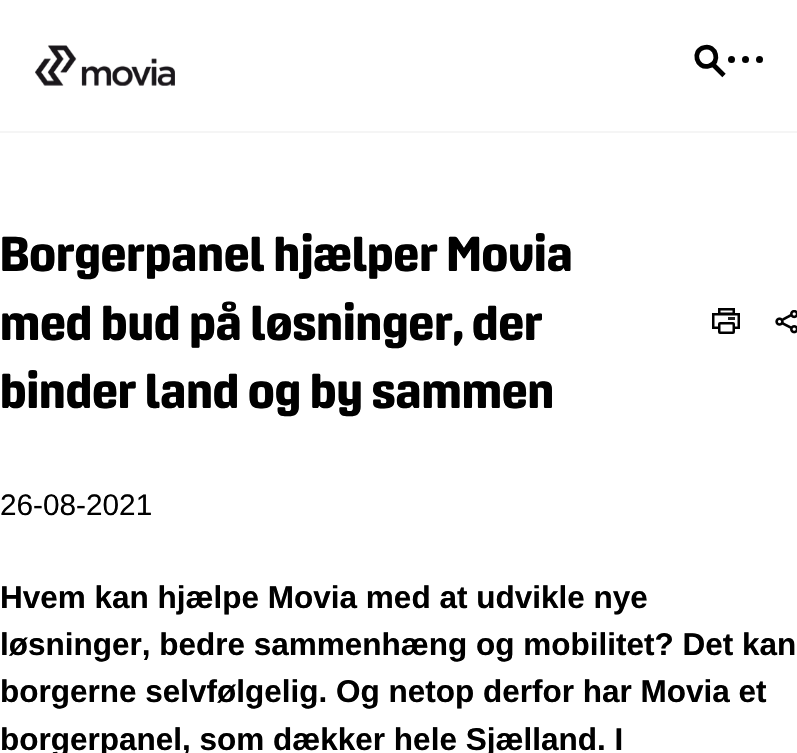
#include "include/core/SkBlurTypes.h"
#include "include/core/SkCanvas.h"
#include "include/core/SkData.h"
#include "include/core/SkFont.h"
#include "include/core/SkFontMgr.h"
#include "include/core/SkImage.h"
#include "include/core/SkMaskFilter.h"
#include "include/core/SkPaint.h"
#include "include/core/SkPathBuilder.h"
#include "include/core/SkTextBlob.h"
#include "include/effects/SkDashPathEffect.h"
#include "include/effects/SkGradientShader.h"
#include "include/utils/SkParsePath.h"

extern sk_sp<SkFontMgr> fontMgr;

static SkFont font(const char* family, int weight, float size, bool italic = false) {
    SkFontStyle style(weight, SkFontStyle::kNormal_Width,
        italic ? SkFontStyle::kItalic_Slant : SkFontStyle::kUpright_Slant);
    SkFont result(fontMgr->matchFamilyStyle(family, style), size);
    result.setSubpixel(true);
    return result;
}

static void drawLabel(SkCanvas* canvas, const char* s, float x, float y, const SkFont& font, SkColor color) {
    SkPaint ink(SkColor4f::FromColor(color));
    ink.setAntiAlias(true);
    canvas->drawString(s, x, y, font, ink);
}

static void fillRect(SkCanvas* canvas, float x, float y, float w, float h, SkColor color) {
    SkPaint ink(SkColor4f::FromColor(color));
    ink.setAntiAlias(true);
    canvas->drawRect(SkRect::MakeXYWH(x, y, w, h), ink);
}

static void drawPhoto(SkCanvas* canvas, const char* path, float x, float y, float w, float h) {
    auto image = SkImages::DeferredFromEncodedData(SkData::MakeFromFileName(path));
    canvas->drawImageRect(image, SkRect::MakeXYWH(x, y, w, h), SkSamplingOptions());
}

static SkPath parsePath(const char* data, bool evenOdd = false) {
    SkPath result = *SkParsePath::FromSVGString(data);
    if (evenOdd) result.setFillType(SkPathFillType::kEvenOdd);
    return result;
}

void draw(SkCanvas* canvas) {
    SkPaint paint;
    paint.setAntiAlias(true);
    canvas->clear(0xFFFFFFFF);
    fillRect(canvas, 0, 131, 797, 2, 0xFFF5F5F5);
    drawPhoto(canvas, "assets/img1.png", 35, 45, 140, 41);
    paint.setStroke(true);
    paint.setStrokeWidth(4.8f);
    paint.setColor(0xFF000000);
    canvas->drawPath(parsePath("M704 47.5C716 44 721 63 709 66C696.5 69.5 691.5 50.5 704 47.5ZM713.5 65L724 75.5"), paint);
    paint.setStroke(false);
    canvas->drawCircle(731.5f, 59.5f, 3.5f, paint);
    canvas->drawCircle(745.5f, 59.5f, 3.5f, paint);
    canvas->drawCircle(759.5f, 59.5f, 3.5f, paint);
    SkFont font1 = font("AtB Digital", 700, 49);
    drawLabel(canvas, "Borgerpanel hjælper Movia", 0, 271, font1, 0xFF000000);
    drawLabel(canvas, "med bud på løsninger, der", 0, 340, font1, 0xFF000000);
    drawLabel(canvas, "binder land og by sammen", 0, 408, font1, 0xFF000000);
    paint.setStroke(true);
    paint.setStrokeWidth(2.5f);
    canvas->drawRect(SkRect::MakeXYWH(719.25f, 309.25f, 14.5f, 4.5f), paint);
    fillRect(canvas, 728, 317, 7, 3, 0xFF222222);
    canvas->drawRect(SkRect::MakeXYWH(713.25f, 314.25f, 25.5f, 13.5f), paint);
    paint.setStroke(false);
    paint.setColor(0xFFFFFFFF);
    canvas->drawRoundRect(SkRect::MakeXYWH(719.25f, 323.25f, 14.5f, 9.5f), 0.75f, 0.75f, paint);
    paint.setStroke(true);
    paint.setColor(0xFF000000);
    canvas->drawRoundRect(SkRect::MakeXYWH(719.25f, 323.25f, 14.5f, 9.5f), 0.75f, 0.75f, paint);
    drawPhoto(canvas, "assets/img2.png", 775, 310, 22, 24);
    SkFont font2 = font("Liberation Sans", 400, 29.75f);
    drawLabel(canvas, "26-08-2021", 0, 515, font2, 0xFF000000);
    SkFont font3 = font("Liberation Sans", 700, 31.5f);
    drawLabel(canvas, "Hvem kan hjælpe Movia med at udvikle nye", 0, 608, font3, 0xFF000000);
    drawLabel(canvas, "løsninger, bedre sammenhæng og mobilitet? Det kan", 0, 655, font3, 0xFF000000);
    drawLabel(canvas, "borgerne selvfølgelig. Og netop derfor har Movia et", 0, 702, font3, 0xFF000000);
    drawLabel(canvas, "borgerpanel, som dækker hele Sjælland. I", 0, 750, font3, 0xFF000000);
}
